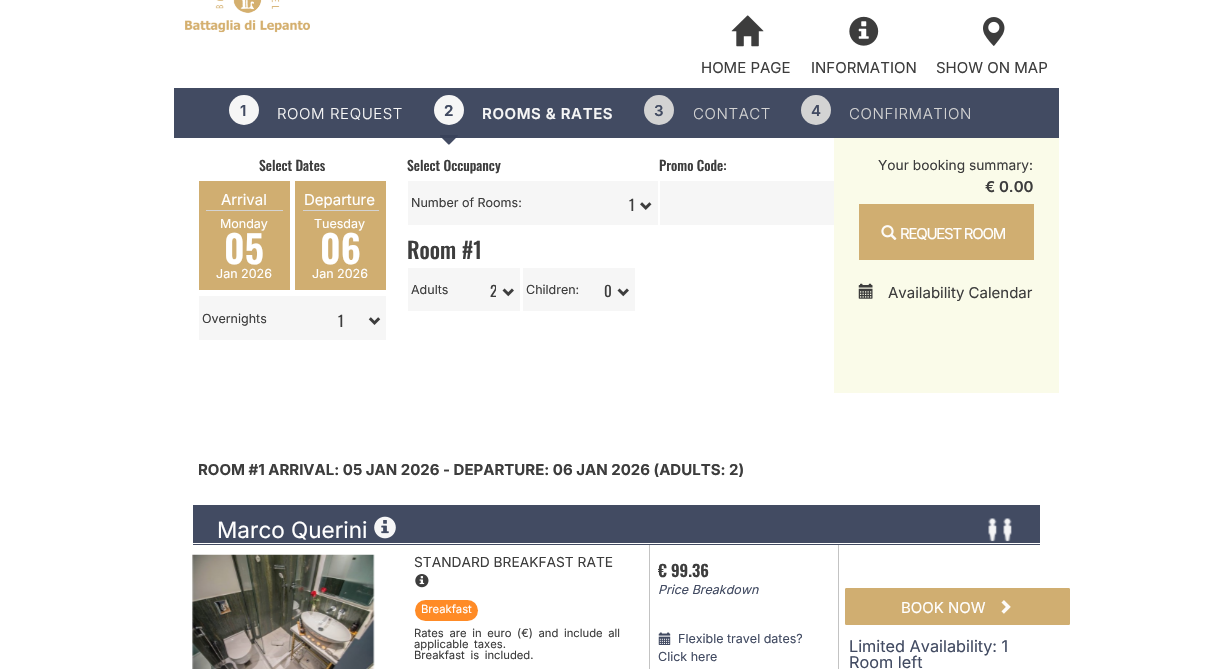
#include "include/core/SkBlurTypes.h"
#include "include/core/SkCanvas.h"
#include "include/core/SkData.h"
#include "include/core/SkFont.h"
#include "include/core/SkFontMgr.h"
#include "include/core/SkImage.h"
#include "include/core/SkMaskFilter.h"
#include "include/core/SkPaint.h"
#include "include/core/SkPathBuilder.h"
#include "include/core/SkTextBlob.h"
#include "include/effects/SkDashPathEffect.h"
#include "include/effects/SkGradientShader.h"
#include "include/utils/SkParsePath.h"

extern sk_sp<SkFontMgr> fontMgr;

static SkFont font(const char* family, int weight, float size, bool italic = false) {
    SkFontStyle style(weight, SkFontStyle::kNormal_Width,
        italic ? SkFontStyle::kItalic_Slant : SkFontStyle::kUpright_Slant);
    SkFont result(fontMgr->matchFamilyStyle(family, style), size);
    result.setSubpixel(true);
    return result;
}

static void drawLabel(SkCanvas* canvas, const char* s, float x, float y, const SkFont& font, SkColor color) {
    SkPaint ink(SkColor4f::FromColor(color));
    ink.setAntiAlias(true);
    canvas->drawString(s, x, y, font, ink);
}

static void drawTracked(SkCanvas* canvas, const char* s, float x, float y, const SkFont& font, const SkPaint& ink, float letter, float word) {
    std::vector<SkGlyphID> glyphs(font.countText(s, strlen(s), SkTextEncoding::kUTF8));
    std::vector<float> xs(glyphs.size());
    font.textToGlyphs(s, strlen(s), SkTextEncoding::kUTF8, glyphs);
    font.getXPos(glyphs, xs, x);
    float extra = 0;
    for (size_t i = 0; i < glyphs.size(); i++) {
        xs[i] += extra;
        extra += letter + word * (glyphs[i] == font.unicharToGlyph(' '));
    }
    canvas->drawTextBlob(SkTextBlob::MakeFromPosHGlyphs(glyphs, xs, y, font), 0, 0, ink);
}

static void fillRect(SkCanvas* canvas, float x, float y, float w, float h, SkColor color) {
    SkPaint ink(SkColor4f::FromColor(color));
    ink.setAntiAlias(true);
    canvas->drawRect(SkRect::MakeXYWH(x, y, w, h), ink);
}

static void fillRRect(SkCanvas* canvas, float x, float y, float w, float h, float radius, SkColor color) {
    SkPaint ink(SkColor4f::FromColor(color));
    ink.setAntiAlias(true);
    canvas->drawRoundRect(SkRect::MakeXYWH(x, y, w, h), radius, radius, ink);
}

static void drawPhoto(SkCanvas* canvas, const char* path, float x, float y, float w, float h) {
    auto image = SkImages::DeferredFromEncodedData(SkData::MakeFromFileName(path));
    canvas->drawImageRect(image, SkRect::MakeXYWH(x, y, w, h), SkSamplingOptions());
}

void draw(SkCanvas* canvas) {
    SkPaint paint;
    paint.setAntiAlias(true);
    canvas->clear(0xFFFFFFFF);
    drawPhoto(canvas, "assets/img1.png", 185, 0, 125, 33);
    drawPhoto(canvas, "assets/img2.png", 731, 15, 33, 32);
    SkFont font1 = font("Inter", 400, 15);
    drawLabel(canvas, "HOME PAGE", 701, 73, font1, 0xFF3D3D3D);
    drawPhoto(canvas, "assets/img3.png", 849, 16, 30, 30);
    drawLabel(canvas, "INFORMATION", 811, 73, font1, 0xFF3D3D3D);
    drawPhoto(canvas, "assets/img4.png", 983, 17, 22, 29);
    drawLabel(canvas, "SHOW ON MAP", 936, 73, font1, 0xFF3D3D3D);
    fillRect(canvas, 174, 88, 885, 50, 0xFF424B62);
    paint.setColor(0xFFF6F6F6);
    canvas->drawCircle(244, 110, 15, paint);
    SkFont font2 = font("Inter", 600, 15);
    drawLabel(canvas, "1", 240, 116, font2, 0xFF424B62);
    SkFont font3 = font("Inter", 300, 15);
    drawTracked(canvas, "ROOM REQUEST", 277, 119, font3, paint, 0.6f, 0);
    canvas->drawCircle(449, 110, 15, paint);
    SkFont font4 = font("Inter", 700, 15);
    drawLabel(canvas, "2", 444, 116, font4, 0xFF424B62);
    drawTracked(canvas, "ROOMS & RATES", 482, 119, font2, paint, 0.6f, 0);
    drawPhoto(canvas, "assets/img5.png", 440, 135, 18, 10);
    paint.setColor(0xFFD3D3D3);
    canvas->drawCircle(659, 110, 15, paint);
    drawLabel(canvas, "3", 654, 116, font2, 0xFF424B62);
    drawTracked(canvas, "CONTACT", 693, 119, font3, paint, 0.6f, 0);
    canvas->drawCircle(816, 110, 15, paint);
    drawLabel(canvas, "4", 811, 116, font2, 0xFF424B62);
    drawTracked(canvas, "CONFIRMATION", 849, 119, font3, paint, 0.6f, 0);
    SkFont font5 = font("Oswald", 500, 13.75f);
    drawLabel(canvas, "Select Dates", 259, 171, font5, 0xFF3D3D3D);
    fillRect(canvas, 199, 181, 91, 109, 0xFFD0AE71);
    drawLabel(canvas, "Arrival", 221, 205, font1, 0xFFFFFFFF);
    fillRect(canvas, 206, 210, 77, 1, 0xFFD3D3D3);
    SkFont font6 = font("Inter", 400, 12.5f);
    drawLabel(canvas, "Monday", 220, 228, font6, 0xFFFFFFFF);
    SkFont font7 = font("Oswald", 600, 38);
    drawLabel(canvas, "05", 224, 264, font7, 0xFFFFFFFF);
    drawLabel(canvas, "Jan 2026", 216, 278, font6, 0xFFFFFFFF);
    fillRect(canvas, 295, 181, 91, 109, 0xFFD0AE71);
    drawLabel(canvas, "Departure", 304, 205, font1, 0xFFFFFFFF);
    fillRect(canvas, 303, 210, 76, 1, 0xFFD3D3D3);
    drawLabel(canvas, "Tuesday", 314, 228, font6, 0xFFFFFFFF);
    drawLabel(canvas, "06", 320, 264, font7, 0xFFFFFFFF);
    drawLabel(canvas, "Jan 2026", 312, 278, font6, 0xFFFFFFFF);
    fillRect(canvas, 199, 296, 187, 44, 0xFFF6F6F6);
    drawLabel(canvas, "Overnights", 202, 323, font6, 0xFF3D3D3D);
    SkFont font8 = font("Oswald", 400, 15);
    drawLabel(canvas, "1", 338, 327, font8, 0xFF3D3D3D);
    drawPhoto(canvas, "assets/img6.png", 368, 317, 13, 8);
    drawLabel(canvas, "Select Occupancy", 407, 171, font5, 0xFF3D3D3D);
    fillRect(canvas, 408, 181, 250, 44, 0xFFF6F6F6);
    drawLabel(canvas, "Number of Rooms:", 411, 207, font6, 0xFF3D3D3D);
    drawLabel(canvas, "1", 629, 211, font8, 0xFF3D3D3D);
    drawPhoto(canvas, "assets/img7.png", 640, 202, 12, 8);
    SkFont font9 = font("Oswald", 500, 22.5f);
    drawLabel(canvas, "Room #1", 407, 259, font9, 0xFF3D3D3D);
    fillRect(canvas, 408, 268, 112, 43, 0xFFF6F6F6);
    drawLabel(canvas, "Adults", 411, 294, font6, 0xFF3D3D3D);
    canvas->save();
    canvas->clipRect(SkRect::MakeXYWH(478, 280, 18, 21));
    drawLabel(canvas, "2", 490, 297, font8, 0xFF3D3D3D);
    canvas->restore();
    drawPhoto(canvas, "assets/img8.png", 502, 288, 12, 9);
    fillRect(canvas, 523, 268, 112, 43, 0xFFF6F6F6);
    drawLabel(canvas, "Children:", 526, 294, font6, 0xFF3D3D3D);
    drawLabel(canvas, "0", 604, 297, font8, 0xFF3D3D3D);
    drawPhoto(canvas, "assets/img8.png", 617, 288, 12, 9);
    drawLabel(canvas, "Promo Code:", 659, 171, font5, 0xFF3D3D3D);
    fillRect(canvas, 660, 181, 174, 44, 0xFFF6F6F6);
    fillRect(canvas, 834, 138, 225, 255, 0xFFFAFBE9);
    SkFont font10 = font("Inter", 400, 13.75f);
    drawLabel(canvas, "Your booking summary:", 878, 170, font10, 0xFF3D3D3D);
    drawLabel(canvas, "€ 0.00", 985, 192, font2, 0xFF3D3D3D);
    fillRect(canvas, 859, 204, 175, 56, 0xFFD0AE71);
    drawPhoto(canvas, "assets/img9.png", 881, 225, 16, 15);
    paint.setColor(0xFFFFFFFF);
    drawTracked(canvas, "REQUEST ROOM", 900, 239, font1, paint, -1.25f, 0);
    drawPhoto(canvas, "assets/img10.png", 858, 283, 15, 16);
    drawLabel(canvas, "Availability Calendar", 888, 298, font1, 0xFF3D3D3D);
    drawLabel(canvas, "ROOM #1 ARRIVAL: 05 JAN 2026 - DEPARTURE: 06 JAN 2026 (ADULTS: 2)", 198, 475, font4, 0xFF3D3D3D);
    fillRect(canvas, 193, 505, 847, 38, 0xFF424B62);
    SkFont font11 = font("Inter", 400, 22.5f);
    drawLabel(canvas, "Marco Querini", 217, 538, font11, 0xFFFFFFFF);
    drawPhoto(canvas, "assets/img11.png", 374, 516, 22, 23);
    drawPhoto(canvas, "assets/img12.png", 988, 518, 24, 24);
    fillRect(canvas, 193, 544, 847, 1, 0xFF424B62);
    drawPhoto(canvas, "assets/img13.png", 192, 554, 183, 115);
    drawLabel(canvas, "STANDARD BREAKFAST RATE", 414, 567, font10, 0xFF3D3D3D);
    drawPhoto(canvas, "assets/img14.png", 415, 574, 14, 14);
    fillRRect(canvas, 415, 600, 63, 21, 10.5f, 0xFFFF8B26);
    SkFont font12 = font("Inter", 400, 11.25f);
    drawLabel(canvas, "Breakfast", 421, 613, font12, 0xFFFFFFFF);
    paint.setColor(0xFF3D3D3D);
    drawTracked(canvas, "Rates are in euro (€) and include all", 414, 637, font12, paint, 0, 2.5f);
    drawTracked(canvas, "applicable taxes.", 414, 648, font12, paint, 0, 2.5f);
    drawTracked(canvas, "Breakfast is included.", 414, 659, font12, paint, 0, 2.5f);
    fillRect(canvas, 838, 545, 1, 124, 0xFFC3C3C3);
    fillRect(canvas, 649, 545, 1, 124, 0xFFC3C3C3);
    SkFont font13 = font("Oswald", 600, 16.25f);
    drawLabel(canvas, "€ 99.36", 658, 577, font13, 0xFF3D3D3D);
    SkFont font14 = font("Inter", 400, 12.5f, true);
    drawLabel(canvas, "Price Breakdown", 658, 594, font14, 0xFF424B62);
    drawPhoto(canvas, "assets/img15.png", 658, 632, 13, 13);
    drawLabel(canvas, "Flexible travel dates?", 678, 643, font6, 0xFF424B62);
    drawLabel(canvas, "Click here", 658, 661, font6, 0xFF424B62);
    paint.setColor(0xFFD0AE71);
    canvas->drawRoundRect(SkRect::MakeXYWH(845.5f, 588.5f, 224, 36), 0.5f, 0.5f, paint);
    paint.setStroke(true);
    paint.setStrokeWidth(1);
    canvas->drawRoundRect(SkRect::MakeXYWH(845.5f, 588.5f, 224, 36), 0.5f, 0.5f, paint);
    drawLabel(canvas, "BOOK NOW", 901, 613, font1, 0xFFFFFFFF);
    drawPhoto(canvas, "assets/img16.png", 1001, 600, 10, 14);
    SkFont font15 = font("Inter", 400, 16.25f);
    drawLabel(canvas, "Limited Availability: 1", 849, 652, font15, 0xFF424B62);
    drawLabel(canvas, "Room left", 849, 668, font15, 0xFF424B62);
}
